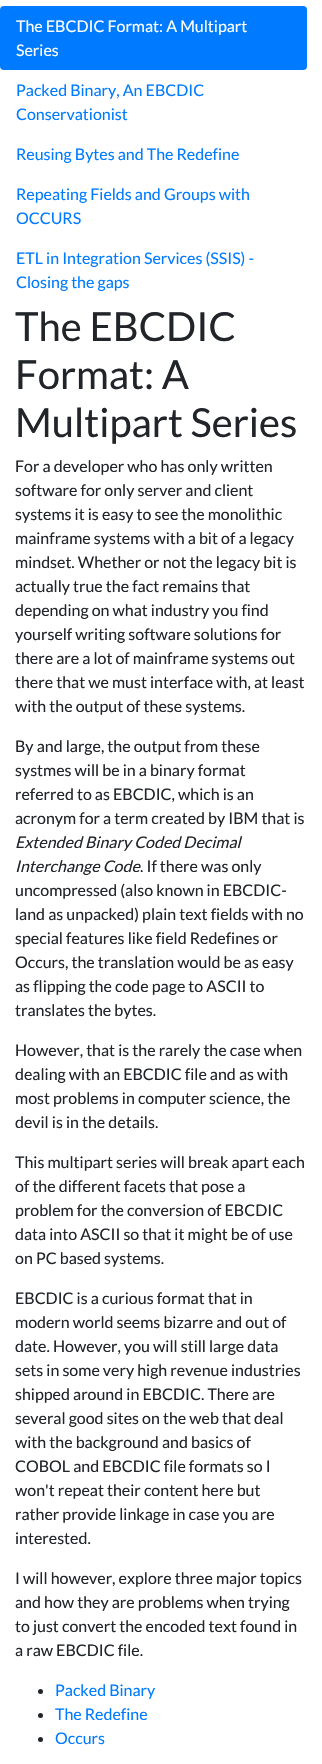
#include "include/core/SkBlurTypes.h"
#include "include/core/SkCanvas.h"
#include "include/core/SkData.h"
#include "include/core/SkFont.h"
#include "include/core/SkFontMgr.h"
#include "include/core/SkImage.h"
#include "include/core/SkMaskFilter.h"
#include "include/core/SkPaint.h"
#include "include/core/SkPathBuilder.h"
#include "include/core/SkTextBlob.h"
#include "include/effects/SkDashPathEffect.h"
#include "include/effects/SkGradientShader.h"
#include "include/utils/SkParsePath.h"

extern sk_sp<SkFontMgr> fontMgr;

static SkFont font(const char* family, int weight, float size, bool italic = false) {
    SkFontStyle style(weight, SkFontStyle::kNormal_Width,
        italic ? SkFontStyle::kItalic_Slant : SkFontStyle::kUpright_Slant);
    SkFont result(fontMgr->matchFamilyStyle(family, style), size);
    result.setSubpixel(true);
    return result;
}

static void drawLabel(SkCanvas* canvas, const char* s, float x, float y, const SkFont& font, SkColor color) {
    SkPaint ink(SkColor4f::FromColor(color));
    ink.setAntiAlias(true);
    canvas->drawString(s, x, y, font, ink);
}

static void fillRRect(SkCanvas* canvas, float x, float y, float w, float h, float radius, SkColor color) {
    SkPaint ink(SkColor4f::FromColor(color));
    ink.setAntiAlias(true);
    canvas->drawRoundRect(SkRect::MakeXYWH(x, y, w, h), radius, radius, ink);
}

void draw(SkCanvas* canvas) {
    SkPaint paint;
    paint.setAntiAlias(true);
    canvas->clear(0xFFFFFFFF);
    fillRRect(canvas, 0, 6, 307, 64, 4, 0xFF007BFF);
    SkFont font1 = font("Lato", 400, 16);
    drawLabel(canvas, "The EBCDIC Format: A Multipart", 16, 32, font1, 0xFFFFFFFF);
    drawLabel(canvas, "Series", 16, 56, font1, 0xFFFFFFFF);
    drawLabel(canvas, "Packed Binary, An EBCDIC", 16, 96, font1, 0xFF007BFF);
    drawLabel(canvas, "Conservationist", 16, 120, font1, 0xFF007BFF);
    drawLabel(canvas, "Reusing Bytes and The Redefine", 16, 160, font1, 0xFF007BFF);
    drawLabel(canvas, "Repeating Fields and Groups with", 16, 200, font1, 0xFF007BFF);
    drawLabel(canvas, "OCCURS", 16, 224, font1, 0xFF007BFF);
    drawLabel(canvas, "ETL in Integration Services (SSIS) -", 16, 264, font1, 0xFF007BFF);
    drawLabel(canvas, "Closing the gaps", 16, 288, font1, 0xFF007BFF);
    SkFont font2 = font("Lato", 400, 40);
    drawLabel(canvas, "The EBCDIC", 15, 341, font2, 0xFF212529);
    drawLabel(canvas, "Format: A", 15, 389, font2, 0xFF212529);
    drawLabel(canvas, "Multipart Series", 15, 437, font2, 0xFF212529);
    drawLabel(canvas, "For a developer who has only written", 15, 472, font1, 0xFF212529);
    drawLabel(canvas, "software for only server and client", 15, 496, font1, 0xFF212529);
    drawLabel(canvas, "systems it is easy to see the monolithic", 15, 520, font1, 0xFF212529);
    drawLabel(canvas, "mainframe systems with a bit of a legacy", 15, 544, font1, 0xFF212529);
    drawLabel(canvas, "mindset. Whether or not the legacy bit is", 15, 568, font1, 0xFF212529);
    drawLabel(canvas, "actually true the fact remains that", 15, 592, font1, 0xFF212529);
    drawLabel(canvas, "depending on what industry you find", 15, 616, font1, 0xFF212529);
    drawLabel(canvas, "yourself writing software solutions for", 15, 640, font1, 0xFF212529);
    drawLabel(canvas, "there are a lot of mainframe systems out", 15, 664, font1, 0xFF212529);
    drawLabel(canvas, "there that we must interface with, at least", 15, 688, font1, 0xFF212529);
    drawLabel(canvas, "with the output of these systems.", 15, 712, font1, 0xFF212529);
    drawLabel(canvas, "By and large, the output from these", 15, 752, font1, 0xFF212529);
    drawLabel(canvas, "systmes will be in a binary format", 15, 776, font1, 0xFF212529);
    drawLabel(canvas, "referred to as EBCDIC, which is an", 15, 800, font1, 0xFF212529);
    drawLabel(canvas, "acronym for a term created by IBM that is", 15, 824, font1, 0xFF212529);
    SkFont font3 = font("Lato", 400, 16, true);
    drawLabel(canvas, "Extended Binary Coded Decimal", 15, 848, font3, 0xFF212529);
    drawLabel(canvas, "Interchange Code", 15, 872, font3, 0xFF212529);
    drawLabel(canvas, ". If there was only", 140, 872, font1, 0xFF212529);
    drawLabel(canvas, "uncompressed (also known in EBCDIC-", 15, 896, font1, 0xFF212529);
    drawLabel(canvas, "land as unpacked) plain text fields with no", 15, 920, font1, 0xFF212529);
    drawLabel(canvas, "special features like field Redefines or", 15, 944, font1, 0xFF212529);
    drawLabel(canvas, "Occurs, the translation would be as easy", 15, 968, font1, 0xFF212529);
    drawLabel(canvas, "as flipping the code page to ASCII to", 15, 992, font1, 0xFF212529);
    drawLabel(canvas, "translates the bytes.", 15, 1016, font1, 0xFF212529);
    drawLabel(canvas, "However, that is the rarely the case when", 15, 1056, font1, 0xFF212529);
    drawLabel(canvas, "dealing with an EBCDIC file and as with", 15, 1080, font1, 0xFF212529);
    drawLabel(canvas, "most problems in computer science, the", 15, 1104, font1, 0xFF212529);
    drawLabel(canvas, "devil is in the details.", 15, 1128, font1, 0xFF212529);
    drawLabel(canvas, "This multipart series will break apart each", 15, 1168, font1, 0xFF212529);
    drawLabel(canvas, "of the different facets that pose a", 15, 1192, font1, 0xFF212529);
    drawLabel(canvas, "problem for the conversion of EBCDIC", 15, 1216, font1, 0xFF212529);
    drawLabel(canvas, "data into ASCII so that it might be of use", 15, 1240, font1, 0xFF212529);
    drawLabel(canvas, "on PC based systems.", 15, 1264, font1, 0xFF212529);
    drawLabel(canvas, "EBCDIC is a curious format that in", 15, 1304, font1, 0xFF212529);
    drawLabel(canvas, "modern world seems bizarre and out of", 15, 1328, font1, 0xFF212529);
    drawLabel(canvas, "date. However, you will still large data", 15, 1352, font1, 0xFF212529);
    drawLabel(canvas, "sets in some very high revenue industries", 15, 1376, font1, 0xFF212529);
    drawLabel(canvas, "shipped around in EBCDIC. There are", 15, 1400, font1, 0xFF212529);
    drawLabel(canvas, "several good sites on the web that deal", 15, 1424, font1, 0xFF212529);
    drawLabel(canvas, "with the background and basics of", 15, 1448, font1, 0xFF212529);
    drawLabel(canvas, "COBOL and EBCDIC file formats so I", 15, 1472, font1, 0xFF212529);
    drawLabel(canvas, "won't repeat their content here but", 15, 1496, font1, 0xFF212529);
    drawLabel(canvas, "rather provide linkage in case you are", 15, 1520, font1, 0xFF212529);
    drawLabel(canvas, "interested.", 15, 1544, font1, 0xFF212529);
    drawLabel(canvas, "I will however, explore three major topics", 15, 1584, font1, 0xFF212529);
    drawLabel(canvas, "and how they are problems when trying", 15, 1608, font1, 0xFF212529);
    drawLabel(canvas, "to just convert the encoded text found in", 15, 1632, font1, 0xFF212529);
    drawLabel(canvas, "a raw EBCDIC file.", 15, 1656, font1, 0xFF212529);
    paint.setColor(0xFF212529);
    canvas->drawCircle(40.5f, 1691.5f, 2.5f, paint);
    drawLabel(canvas, "Packed Binary", 55, 1696, font1, 0xFF007BFF);
    canvas->drawCircle(40.5f, 1715.5f, 2.5f, paint);
    drawLabel(canvas, "The Redefine", 55, 1720, font1, 0xFF007BFF);
    canvas->drawCircle(40.5f, 1739.5f, 2.5f, paint);
    drawLabel(canvas, "Occurs", 55, 1744, font1, 0xFF007BFF);
}
